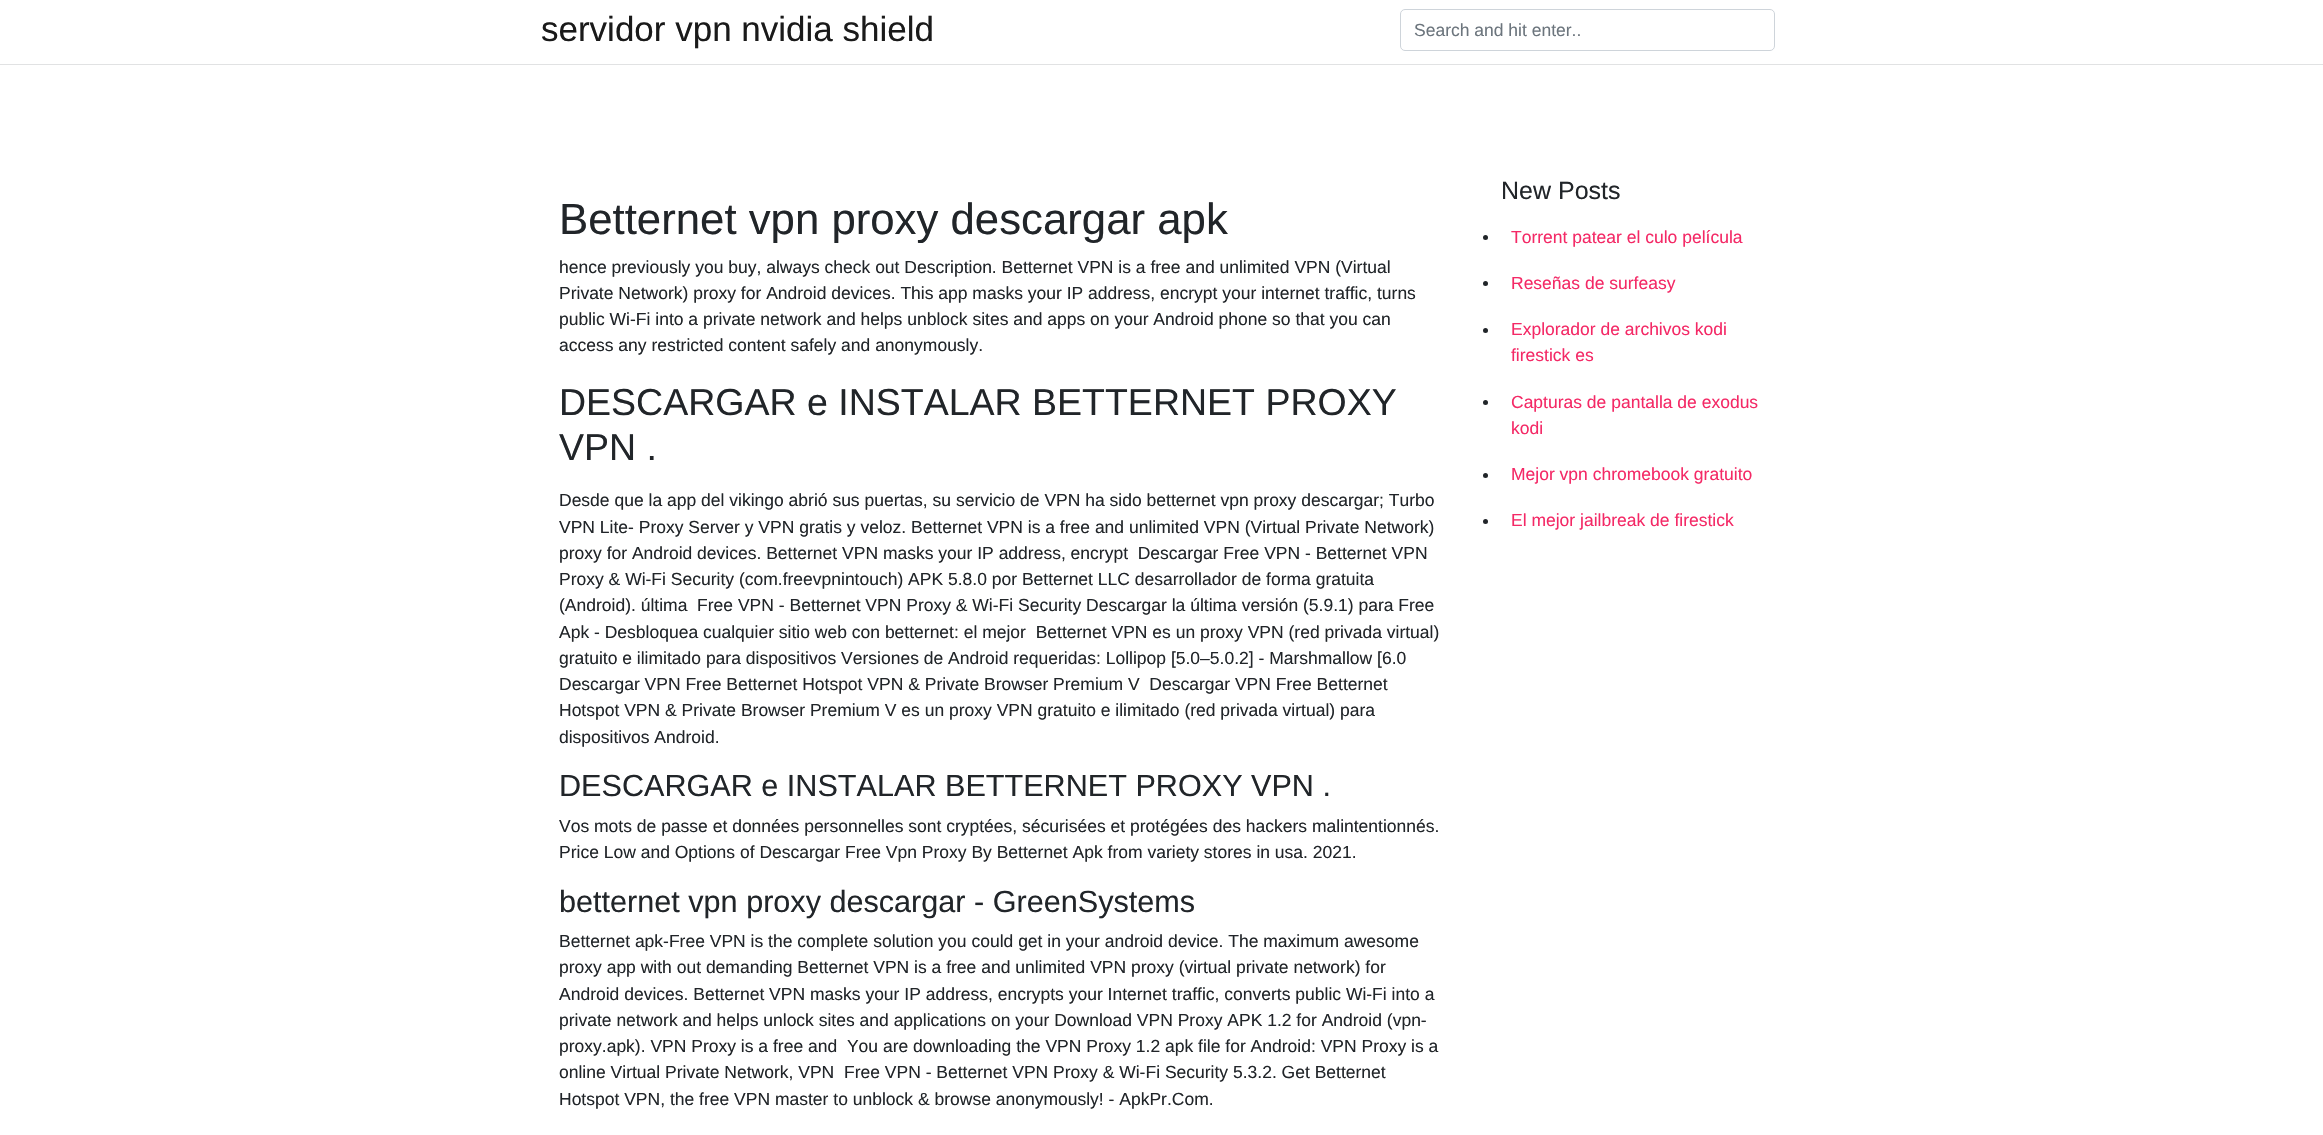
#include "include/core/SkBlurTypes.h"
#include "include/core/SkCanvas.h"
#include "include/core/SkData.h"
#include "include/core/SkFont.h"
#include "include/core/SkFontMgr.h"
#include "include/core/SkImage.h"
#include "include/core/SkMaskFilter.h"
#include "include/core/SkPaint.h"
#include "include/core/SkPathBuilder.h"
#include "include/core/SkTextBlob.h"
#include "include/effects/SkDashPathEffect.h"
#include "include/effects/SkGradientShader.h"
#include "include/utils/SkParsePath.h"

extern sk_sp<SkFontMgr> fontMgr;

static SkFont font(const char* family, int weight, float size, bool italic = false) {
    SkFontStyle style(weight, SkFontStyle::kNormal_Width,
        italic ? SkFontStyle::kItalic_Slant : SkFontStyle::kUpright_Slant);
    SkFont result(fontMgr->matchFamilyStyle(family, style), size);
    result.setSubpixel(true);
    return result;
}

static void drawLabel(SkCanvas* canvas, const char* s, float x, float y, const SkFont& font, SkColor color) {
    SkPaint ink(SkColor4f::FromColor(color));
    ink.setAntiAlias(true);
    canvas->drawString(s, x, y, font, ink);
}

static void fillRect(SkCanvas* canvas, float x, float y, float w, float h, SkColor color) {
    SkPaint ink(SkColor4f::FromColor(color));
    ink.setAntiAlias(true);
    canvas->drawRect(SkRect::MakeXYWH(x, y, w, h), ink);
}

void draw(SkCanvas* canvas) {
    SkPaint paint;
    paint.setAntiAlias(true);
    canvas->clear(0xFFFFFFFF);
    fillRect(canvas, 0, 64, 2323, 1, 0xFFE1E2E3);
    SkFont font1 = font("Liberation Sans", 400, 35);
    drawLabel(canvas, "servidor vpn nvidia shield", 541, 41, font1, 0xFF1A1A1A);
    paint.setStroke(true);
    paint.setStrokeWidth(1);
    paint.setColor(0xFFCED4DA);
    canvas->drawRoundRect(SkRect::MakeXYWH(1400.5f, 9.5f, 374, 41), 4.5f, 4.5f, paint);
    SkFont font2 = font("Liberation Sans", 400, 17.5f);
    drawLabel(canvas, "Search and hit enter..", 1414, 36, font2, 0xFF6C757D);
    SkFont font3 = font("Liberation Sans", 400, 43.75f);
    drawLabel(canvas, "Betternet vpn proxy descargar apk", 559, 234, font3, 0xFF212529);
    drawLabel(canvas, "hence previously you buy, always check out Description. Betternet VPN is a free and unlimited VPN (Virtual", 559, 273, font2, 0xFF212529);
    drawLabel(canvas, "Private Network) proxy for Android devices. This app masks your IP address, encrypt your internet traffic, turns", 559, 299, font2, 0xFF212529);
    drawLabel(canvas, "public Wi-Fi into a private network and helps unblock sites and apps on your Android phone so that you can", 559, 325, font2, 0xFF212529);
    drawLabel(canvas, "access any restricted content safely and anonymously.", 559, 351, font2, 0xFF212529);
    SkFont font4 = font("Liberation Sans", 400, 37.5f);
    drawLabel(canvas, "DESCARGAR e INSTALAR BETTERNET PROXY", 559, 415, font4, 0xFF212529);
    drawLabel(canvas, "VPN .", 559, 460, font4, 0xFF212529);
    drawLabel(canvas, "Desde que la app del vikingo abrió sus puertas, su servicio de VPN ha sido betternet vpn proxy descargar; Turbo", 559, 506, font2, 0xFF212529);
    drawLabel(canvas, "VPN Lite- Proxy Server y VPN gratis y veloz. Betternet VPN is a free and unlimited VPN (Virtual Private Network)", 559, 533, font2, 0xFF212529);
    drawLabel(canvas, "proxy for Android devices. Betternet VPN masks your IP address, encrypt  Descargar Free VPN - Betternet VPN", 559, 559, font2, 0xFF212529);
    drawLabel(canvas, "Proxy & Wi-Fi Security (com.freevpnintouch) APK 5.8.0 por Betternet LLC desarrollador de forma gratuita", 559, 585, font2, 0xFF212529);
    drawLabel(canvas, "(Android). última  Free VPN - Betternet VPN Proxy & Wi-Fi Security Descargar la última versión (5.9.1) para Free", 559, 611, font2, 0xFF212529);
    drawLabel(canvas, "Apk - Desbloquea cualquier sitio web con betternet: el mejor  Betternet VPN es un proxy VPN (red privada virtual)", 559, 638, font2, 0xFF212529);
    drawLabel(canvas, "gratuito e ilimitado para dispositivos Versiones de Android requeridas: Lollipop [5.0–5.0.2] - Marshmallow [6.0", 559, 664, font2, 0xFF212529);
    drawLabel(canvas, "Descargar VPN Free Betternet Hotspot VPN & Private Browser Premium V  Descargar VPN Free Betternet", 559, 690, font2, 0xFF212529);
    drawLabel(canvas, "Hotspot VPN & Private Browser Premium V es un proxy VPN gratuito e ilimitado (red privada virtual) para", 559, 716, font2, 0xFF212529);
    drawLabel(canvas, "dispositivos Android.", 559, 743, font2, 0xFF212529);
    SkFont font5 = font("Liberation Sans", 400, 30.6f);
    drawLabel(canvas, "DESCARGAR e INSTALAR BETTERNET PROXY VPN .", 559, 796, font5, 0xFF212529);
    drawLabel(canvas, "Vos mots de passe et données personnelles sont cryptées, sécurisées et protégées des hackers malintentionnés.", 559, 832, font2, 0xFF212529);
    drawLabel(canvas, "Price Low and Options of Descargar Free Vpn Proxy By Betternet Apk from variety stores in usa. 2021.", 559, 858, font2, 0xFF212529);
    drawLabel(canvas, "betternet vpn proxy descargar - GreenSystems", 559, 912, font5, 0xFF212529);
    drawLabel(canvas, "Betternet apk-Free VPN is the complete solution you could get in your android device. The maximum awesome", 559, 947, font2, 0xFF212529);
    drawLabel(canvas, "proxy app with out demanding Betternet VPN is a free and unlimited VPN proxy (virtual private network) for", 559, 973, font2, 0xFF212529);
    drawLabel(canvas, "Android devices. Betternet VPN masks your IP address, encrypts your Internet traffic, converts public Wi-Fi into a", 559, 1000, font2, 0xFF212529);
    drawLabel(canvas, "private network and helps unlock sites and applications on your Download VPN Proxy APK 1.2 for Android (vpn-", 559, 1026, font2, 0xFF212529);
    drawLabel(canvas, "proxy.apk). VPN Proxy is a free and  You are downloading the VPN Proxy 1.2 apk file for Android: VPN Proxy is a", 559, 1052, font2, 0xFF212529);
    drawLabel(canvas, "online Virtual Private Network, VPN  Free VPN - Betternet VPN Proxy & Wi-Fi Security 5.3.2. Get Betternet", 559, 1078, font2, 0xFF212529);
    drawLabel(canvas, "Hotspot VPN, the free VPN master to unblock & browse anonymously! - ApkPr.Com.", 559, 1105, font2, 0xFF212529);
    SkFont font6 = font("Liberation Sans", 400, 25);
    drawLabel(canvas, "New Posts", 1501, 199, font6, 0xFF212529);
    paint.setStroke(false);
    paint.setColor(0xFF212529);
    canvas->drawCircle(1485.5f, 237.5f, 2.5f, paint);
    drawLabel(canvas, "Torrent patear el culo película", 1511, 243, font2, 0xFFF42966);
    canvas->drawCircle(1485.5f, 283.5f, 2.5f, paint);
    drawLabel(canvas, "Reseñas de surfeasy", 1511, 289, font2, 0xFFF42966);
    canvas->drawCircle(1485.5f, 330.5f, 2.5f, paint);
    drawLabel(canvas, "Explorador de archivos kodi", 1511, 335, font2, 0xFFF42966);
    drawLabel(canvas, "firestick es", 1511, 361, font2, 0xFFF42966);
    canvas->drawCircle(1485.5f, 402.5f, 2.5f, paint);
    drawLabel(canvas, "Capturas de pantalla de exodus", 1511, 408, font2, 0xFFF42966);
    drawLabel(canvas, "kodi", 1511, 434, font2, 0xFFF42966);
    canvas->drawCircle(1485.5f, 475.5f, 2.5f, paint);
    drawLabel(canvas, "Mejor vpn chromebook gratuito", 1511, 480, font2, 0xFFF42966);
    canvas->drawCircle(1485.5f, 521.5f, 2.5f, paint);
    drawLabel(canvas, "El mejor jailbreak de firestick", 1511, 526, font2, 0xFFF42966);
}
